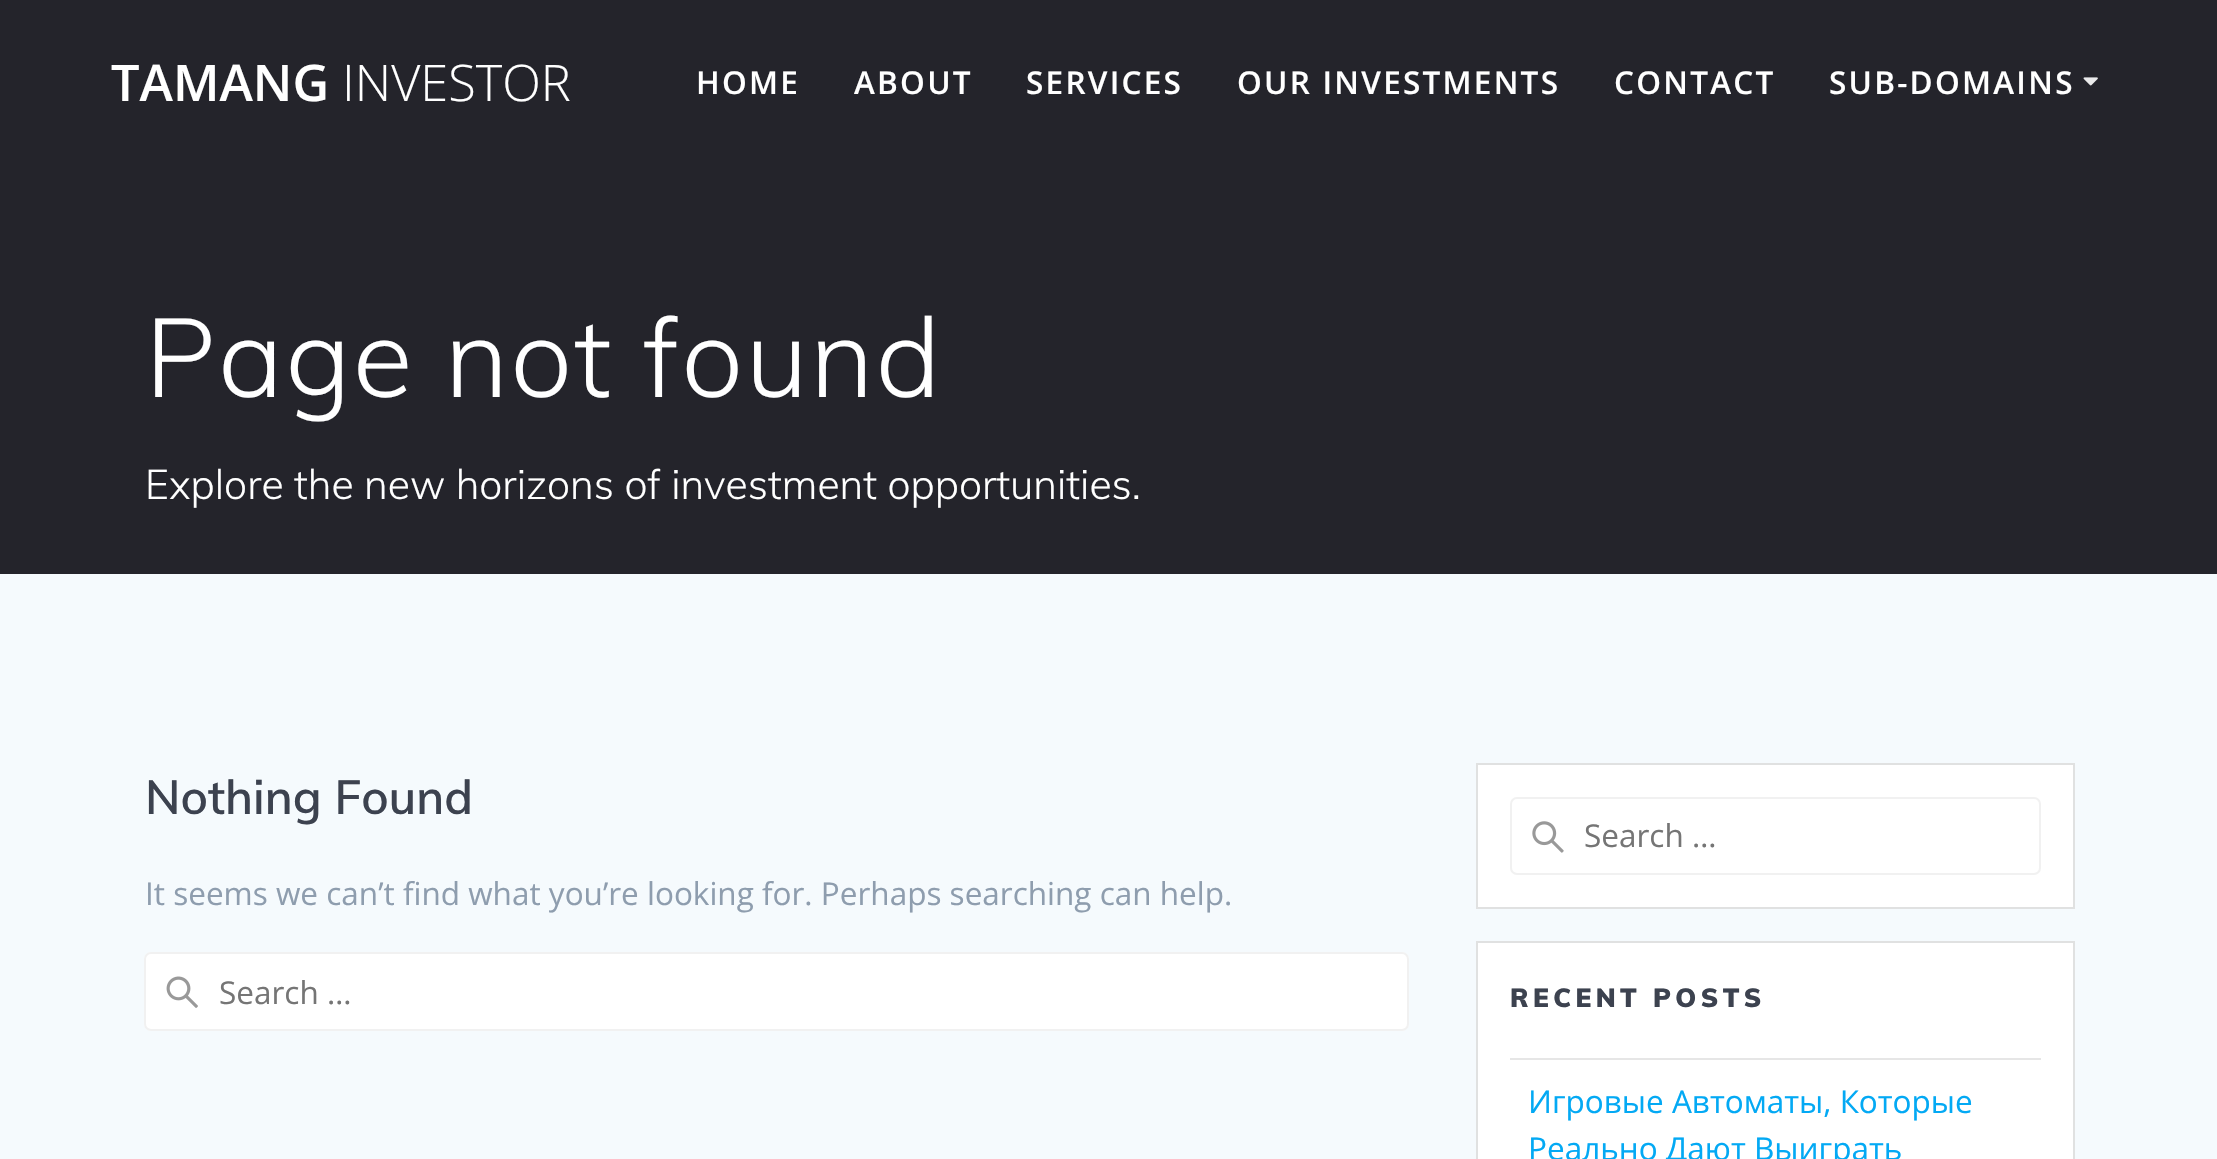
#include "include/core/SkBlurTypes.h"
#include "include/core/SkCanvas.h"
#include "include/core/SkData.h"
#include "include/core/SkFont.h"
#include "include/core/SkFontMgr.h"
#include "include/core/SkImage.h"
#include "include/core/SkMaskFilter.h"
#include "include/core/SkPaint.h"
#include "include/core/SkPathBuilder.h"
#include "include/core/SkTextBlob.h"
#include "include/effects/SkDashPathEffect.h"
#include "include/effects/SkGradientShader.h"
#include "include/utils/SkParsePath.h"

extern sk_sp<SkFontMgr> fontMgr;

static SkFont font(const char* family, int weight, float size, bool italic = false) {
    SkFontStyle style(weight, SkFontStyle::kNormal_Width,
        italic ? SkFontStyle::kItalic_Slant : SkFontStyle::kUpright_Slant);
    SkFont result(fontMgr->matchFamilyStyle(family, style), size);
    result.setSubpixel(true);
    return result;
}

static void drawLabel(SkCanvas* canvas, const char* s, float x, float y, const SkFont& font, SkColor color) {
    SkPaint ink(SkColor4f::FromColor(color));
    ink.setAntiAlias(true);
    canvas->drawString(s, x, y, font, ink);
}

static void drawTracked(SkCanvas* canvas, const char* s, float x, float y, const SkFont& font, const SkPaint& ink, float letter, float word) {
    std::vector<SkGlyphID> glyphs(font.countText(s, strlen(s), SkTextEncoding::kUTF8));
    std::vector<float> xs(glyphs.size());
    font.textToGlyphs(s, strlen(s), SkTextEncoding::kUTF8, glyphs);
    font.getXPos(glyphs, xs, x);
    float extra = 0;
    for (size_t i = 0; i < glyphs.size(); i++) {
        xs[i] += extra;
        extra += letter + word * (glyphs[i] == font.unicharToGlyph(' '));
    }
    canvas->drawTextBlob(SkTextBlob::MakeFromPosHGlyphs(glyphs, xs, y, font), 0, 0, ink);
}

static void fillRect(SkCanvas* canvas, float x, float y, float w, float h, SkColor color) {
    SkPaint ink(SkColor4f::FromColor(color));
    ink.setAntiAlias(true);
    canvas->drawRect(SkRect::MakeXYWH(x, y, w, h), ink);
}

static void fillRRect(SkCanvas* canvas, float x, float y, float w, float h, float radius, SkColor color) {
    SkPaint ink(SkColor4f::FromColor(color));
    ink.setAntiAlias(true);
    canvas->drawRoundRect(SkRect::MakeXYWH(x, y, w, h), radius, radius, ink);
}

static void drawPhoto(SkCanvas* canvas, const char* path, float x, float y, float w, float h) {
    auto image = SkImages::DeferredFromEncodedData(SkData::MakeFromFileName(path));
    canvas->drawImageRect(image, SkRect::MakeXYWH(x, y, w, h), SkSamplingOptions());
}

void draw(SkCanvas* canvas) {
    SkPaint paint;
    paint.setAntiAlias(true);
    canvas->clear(0xFF24242B);
    SkFont font1 = font("Open Sans", 600, 50.5f);
    drawLabel(canvas, "TAMANG", 111, 101, font1, 0xFFFFFFFF);
    SkFont font2 = font("Open Sans", 300, 50.5f);
    drawLabel(canvas, "INVESTOR", 342, 101, font2, 0xFFFFFFFF);
    SkFont font3 = font("Open Sans", 600, 31.5f);
    paint.setColor(0xFFFFFFFF);
    drawTracked(canvas, "HOME", 696, 94, font3, paint, 2.25f, 0);
    drawTracked(canvas, "ABOUT", 854, 94, font3, paint, 2.25f, 0);
    drawTracked(canvas, "SERVICES", 1026, 94, font3, paint, 2.25f, 0);
    drawTracked(canvas, "OUR INVESTMENTS", 1237, 94, font3, paint, 2.25f, 0);
    drawTracked(canvas, "CONTACT", 1614, 94, font3, paint, 2.25f, 0);
    drawTracked(canvas, "SUB-DOMAINS", 1829, 94, font3, paint, 2.25f, 0);
    drawPhoto(canvas, "assets/img1.png", 2083, 77, 15, 9);
    SkFont font4 = font("Muli", 300, 110.25f);
    drawTracked(canvas, "Page not found", 145, 397, font4, paint, 2, 0);
    SkFont font5 = font("Muli", 300, 40.95f);
    drawLabel(canvas, "Explore the new horizons of investment opportunities.", 145, 499, font5, 0xFFFFFFFF);
    fillRect(canvas, 0, 574, 2217, 585, 0xFFF5FAFD);
    SkFont font6 = font("Muli", 600, 47.25f);
    drawLabel(canvas, "Nothing Found", 145, 814, font6, 0xFF3C424F);
    SkFont font7 = font("Open Sans", 400, 31.5f);
    drawLabel(canvas, "It seems we can’t find what you’re looking for. Perhaps searching can help.", 145, 905, font7, 0xFF8E9DAE);
    fillRRect(canvas, 144, 952, 1265, 79, 7, 0xFFFFFFFF);
    drawPhoto(canvas, "assets/img2.png", 166, 976, 32, 32);
    paint.setStroke(true);
    paint.setStrokeWidth(2);
    paint.setColor(0xFFF1F1F1);
    canvas->drawRoundRect(SkRect::MakeXYWH(145, 953, 1263, 77), 6, 6, paint);
    drawLabel(canvas, "Search …", 219, 1004, font7, 0xFF757575);
    paint.setStroke(false);
    paint.setColor(0xFFFFFFFF);
    canvas->drawRect(SkRect::MakeXYWH(1477, 764, 597, 144), paint);
    paint.setStroke(true);
    paint.setColor(0xFFE0E1E1);
    canvas->drawRect(SkRect::MakeXYWH(1477, 764, 597, 144), paint);
    drawPhoto(canvas, "assets/img3.png", 1532, 821, 32, 32);
    paint.setColor(0xFFF1F1F1);
    canvas->drawRoundRect(SkRect::MakeXYWH(1511, 798, 529, 76), 6, 6, paint);
    drawLabel(canvas, "Search …", 1584, 847, font7, 0xFF757575);
    paint.setStroke(false);
    paint.setColor(0xFFFFFFFF);
    canvas->drawRect(SkRect::MakeXYWH(1477, 942, 597, 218), paint);
    paint.setStroke(true);
    paint.setColor(0xFFE0E1E1);
    canvas->drawRect(SkRect::MakeXYWH(1477, 942, 597, 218), paint);
    SkFont font8 = font("Muli", 900, 26.1f);
    paint.setStroke(false);
    paint.setColor(0xFF3C424F);
    drawTracked(canvas, "RECENT POSTS", 1510, 1007, font8, paint, 4.4f, 0);
    fillRect(canvas, 1510, 1058, 531, 2, 0xFFE6E6E6);
    drawLabel(canvas, "Игровые Автоматы, Которые", 1528, 1113, font7, 0xFF03A9F4);
    drawLabel(canvas, "Реально Дают Выиграть", 1528, 1160, font7, 0xFF03A9F4);
}
